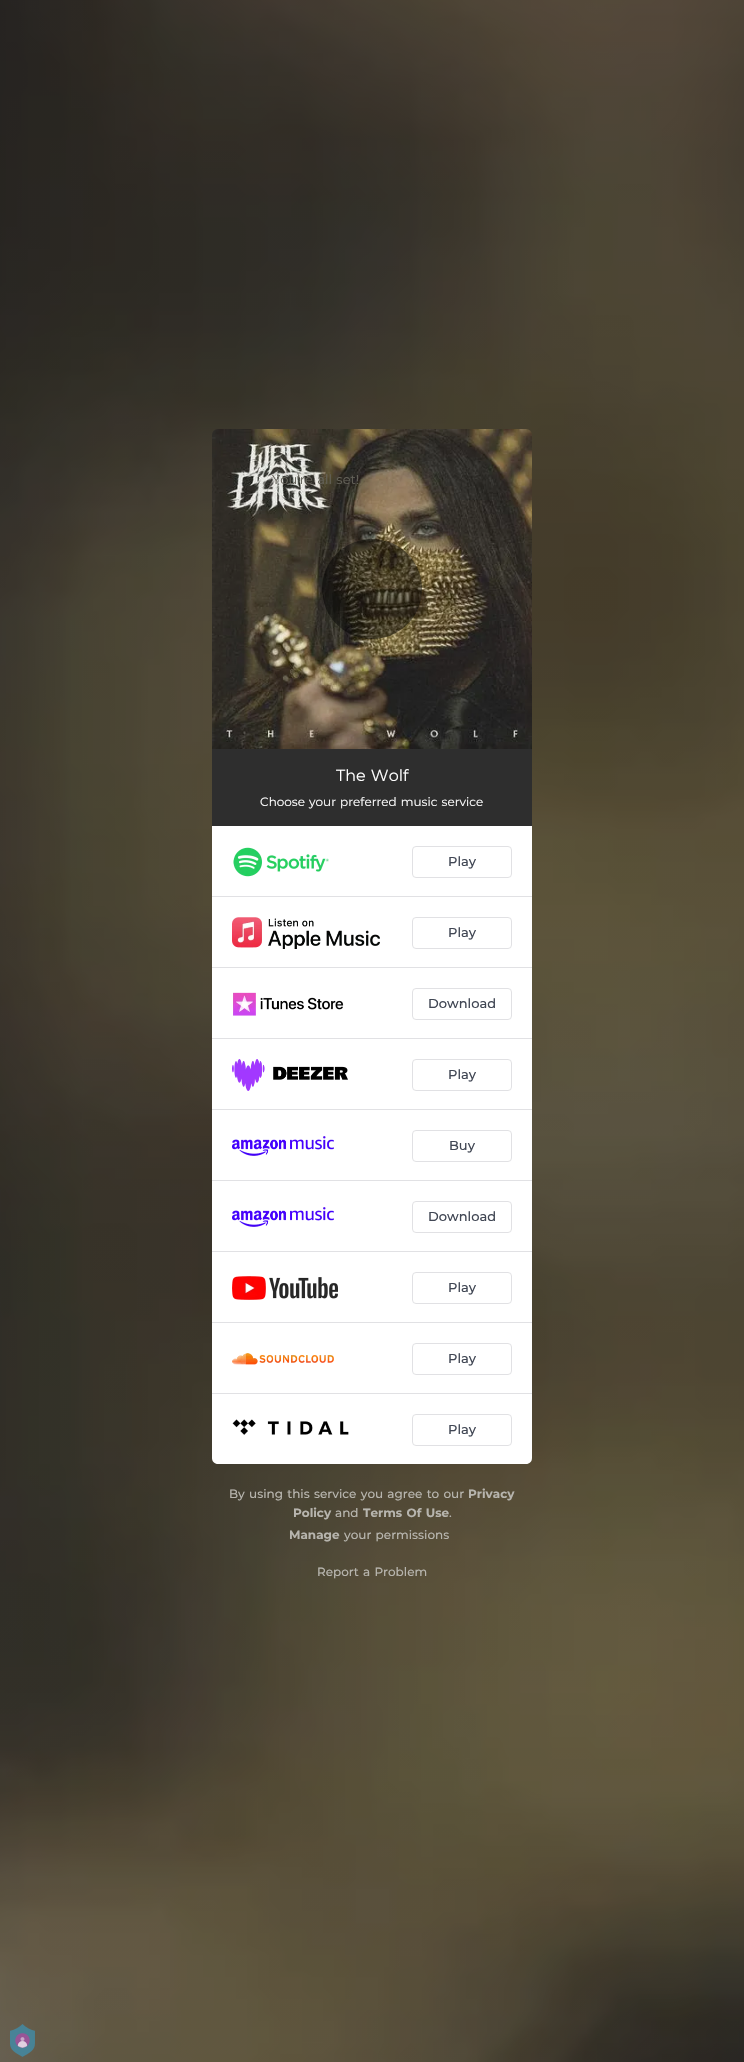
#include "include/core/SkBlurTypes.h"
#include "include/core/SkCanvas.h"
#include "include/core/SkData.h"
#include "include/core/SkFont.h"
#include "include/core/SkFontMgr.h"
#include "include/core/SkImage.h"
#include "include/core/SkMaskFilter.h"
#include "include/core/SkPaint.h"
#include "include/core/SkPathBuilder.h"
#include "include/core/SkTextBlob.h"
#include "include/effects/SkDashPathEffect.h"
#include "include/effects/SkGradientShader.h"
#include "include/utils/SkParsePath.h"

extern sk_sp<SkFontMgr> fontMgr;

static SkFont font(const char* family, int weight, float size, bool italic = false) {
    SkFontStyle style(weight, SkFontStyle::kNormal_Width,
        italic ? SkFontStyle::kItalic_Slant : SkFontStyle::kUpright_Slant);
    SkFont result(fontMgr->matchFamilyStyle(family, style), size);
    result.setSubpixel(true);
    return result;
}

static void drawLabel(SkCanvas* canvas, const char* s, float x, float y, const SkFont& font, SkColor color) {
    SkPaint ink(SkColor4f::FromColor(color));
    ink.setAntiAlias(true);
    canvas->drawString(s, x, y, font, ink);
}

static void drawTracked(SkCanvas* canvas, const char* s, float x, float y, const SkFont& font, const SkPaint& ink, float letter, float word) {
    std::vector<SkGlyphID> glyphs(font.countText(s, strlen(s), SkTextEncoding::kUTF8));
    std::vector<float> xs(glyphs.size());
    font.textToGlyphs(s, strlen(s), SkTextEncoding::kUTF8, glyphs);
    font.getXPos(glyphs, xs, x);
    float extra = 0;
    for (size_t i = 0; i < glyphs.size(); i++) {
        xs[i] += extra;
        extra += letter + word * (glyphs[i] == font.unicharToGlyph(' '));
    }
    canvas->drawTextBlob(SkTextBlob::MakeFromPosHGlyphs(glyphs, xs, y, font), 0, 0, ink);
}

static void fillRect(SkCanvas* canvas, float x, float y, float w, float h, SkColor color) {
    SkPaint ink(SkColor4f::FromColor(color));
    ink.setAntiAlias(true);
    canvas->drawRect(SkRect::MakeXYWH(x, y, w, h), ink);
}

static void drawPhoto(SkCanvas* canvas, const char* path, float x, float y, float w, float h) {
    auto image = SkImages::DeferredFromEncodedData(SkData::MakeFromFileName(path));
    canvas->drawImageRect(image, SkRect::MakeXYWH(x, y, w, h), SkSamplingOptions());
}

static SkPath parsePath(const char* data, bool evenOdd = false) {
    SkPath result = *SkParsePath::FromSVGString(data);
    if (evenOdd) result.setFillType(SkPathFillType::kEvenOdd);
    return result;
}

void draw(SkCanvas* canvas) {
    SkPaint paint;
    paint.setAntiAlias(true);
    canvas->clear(0xFFFFFFFF);
    drawPhoto(canvas, "assets/img1.png", 0, 0, 744, 2062);
    drawPhoto(canvas, "assets/img2.png", 212, 429, 320, 320);
    paint.setColor(0x73000000);
    canvas->drawCircle(372, 589, 50, paint);
    SkFont font1 = font("Montserrat", 400, 13);
    paint.setColor(0xFF646259);
    drawTracked(canvas, "You're all set!", 272, 484, font1, paint, 0, 1);
    fillRect(canvas, 212, 749, 320, 77, 0xFF2E2E2E);
    SkFont font2 = font("Montserrat", 400, 16);
    paint.setColor(0xFFFFFFFF);
    drawTracked(canvas, "The Wolf", 336, 781, font2, paint, 0, 1);
    SkFont font3 = font("Montserrat", 400, 12);
    drawTracked(canvas, "Choose your preferred music service", 260, 806, font3, paint, 0, 1);
    canvas->drawPath(parsePath("M212 826H532V1458C532 1461.5 529.5 1464 526 1464H218C214.5 1464 212 1461.5 212 1458Z"), paint);
    fillRect(canvas, 212, 896, 320, 1, 0xFFE1E1E4);
    drawPhoto(canvas, "assets/img3.png", 233, 847, 96, 30);
    paint.setStroke(true);
    paint.setStrokeWidth(1);
    paint.setColor(0xFFE1E1E4);
    canvas->drawRoundRect(SkRect::MakeXYWH(412.5f, 846.5f, 99, 31), 3.5f, 3.5f, paint);
    SkFont font4 = font("Montserrat", 500, 13);
    drawLabel(canvas, "Play", 448, 866, font4, 0xFF414754);
    fillRect(canvas, 212, 967, 320, 1, 0xFFE1E1E4);
    drawPhoto(canvas, "assets/img4.png", 232, 917, 148, 32);
    canvas->drawRoundRect(SkRect::MakeXYWH(412.5f, 917.5f, 99, 31), 3.5f, 3.5f, paint);
    drawLabel(canvas, "Play", 448, 937, font4, 0xFF414754);
    fillRect(canvas, 212, 1038, 320, 1, 0xFFE1E1E4);
    drawPhoto(canvas, "assets/img5.png", 233, 992, 111, 24);
    canvas->drawRoundRect(SkRect::MakeXYWH(412.5f, 988.5f, 99, 31), 3.5f, 3.5f, paint);
    drawLabel(canvas, "Download", 428, 1008, font4, 0xFF414754);
    fillRect(canvas, 212, 1109, 320, 1, 0xFFE1E1E4);
    drawPhoto(canvas, "assets/img6.png", 232, 1059, 116, 32);
    canvas->drawRoundRect(SkRect::MakeXYWH(412.5f, 1059.5f, 99, 31), 3.5f, 3.5f, paint);
    drawLabel(canvas, "Play", 448, 1079, font4, 0xFF414754);
    fillRect(canvas, 212, 1180, 320, 1, 0xFFE1E1E4);
    drawPhoto(canvas, "assets/img7.png", 232, 1136, 102, 20);
    canvas->drawRoundRect(SkRect::MakeXYWH(412.5f, 1130.5f, 99, 31), 3.5f, 3.5f, paint);
    drawLabel(canvas, "Buy", 449, 1150, font4, 0xFF414754);
    fillRect(canvas, 212, 1251, 320, 1, 0xFFE1E1E4);
    drawPhoto(canvas, "assets/img7.png", 232, 1207, 102, 20);
    canvas->drawRoundRect(SkRect::MakeXYWH(412.5f, 1201.5f, 99, 31), 3.5f, 3.5f, paint);
    drawLabel(canvas, "Download", 428, 1221, font4, 0xFF414754);
    fillRect(canvas, 212, 1322, 320, 1, 0xFFE1E1E4);
    drawPhoto(canvas, "assets/img8.png", 232, 1276, 106, 24);
    canvas->drawRoundRect(SkRect::MakeXYWH(412.5f, 1272.5f, 99, 31), 3.5f, 3.5f, paint);
    drawLabel(canvas, "Play", 448, 1292, font4, 0xFF414754);
    fillRect(canvas, 212, 1393, 320, 1, 0xFFE1E1E4);
    drawPhoto(canvas, "assets/img9.png", 232, 1353, 102, 12);
    canvas->drawRoundRect(SkRect::MakeXYWH(412.5f, 1343.5f, 99, 31), 3.5f, 3.5f, paint);
    drawLabel(canvas, "Play", 448, 1363, font4, 0xFF414754);
    drawPhoto(canvas, "assets/img10.png", 232, 1419, 117, 16);
    canvas->drawRoundRect(SkRect::MakeXYWH(412.5f, 1414.5f, 99, 31), 3.5f, 3.5f, paint);
    drawLabel(canvas, "Play", 448, 1434, font4, 0xFF414754);
    SkFont font5 = font("Montserrat", 500, 12);
    paint.setStroke(false);
    paint.setColor(0xFFB7B5AE);
    drawTracked(canvas, "By using this service you agree to our", 229, 1498, font5, paint, 0, 1);
    SkFont font6 = font("Montserrat", 700, 12);
    drawLabel(canvas, "Privacy", 468, 1498, font6, 0xFFB7B5AE);
    drawLabel(canvas, "Policy", 293, 1517, font6, 0xFFB7B5AE);
    drawLabel(canvas, "and", 335, 1517, font5, 0xFFB7B5AE);
    drawTracked(canvas, "Terms Of Use", 363, 1517, font6, paint, 0, 1);
    drawLabel(canvas, ".", 449, 1517, font5, 0xFFB7B5AE);
    drawLabel(canvas, "Manage", 289, 1539, font6, 0xFFB7B5AE);
    drawTracked(canvas, "your permissions", 344, 1539, font5, paint, 0, 1);
    drawTracked(canvas, "Report a Problem", 317, 1576, font5, paint, 0, 1);
    drawPhoto(canvas, "assets/img11.png", 10, 2024, 25, 33);
}
